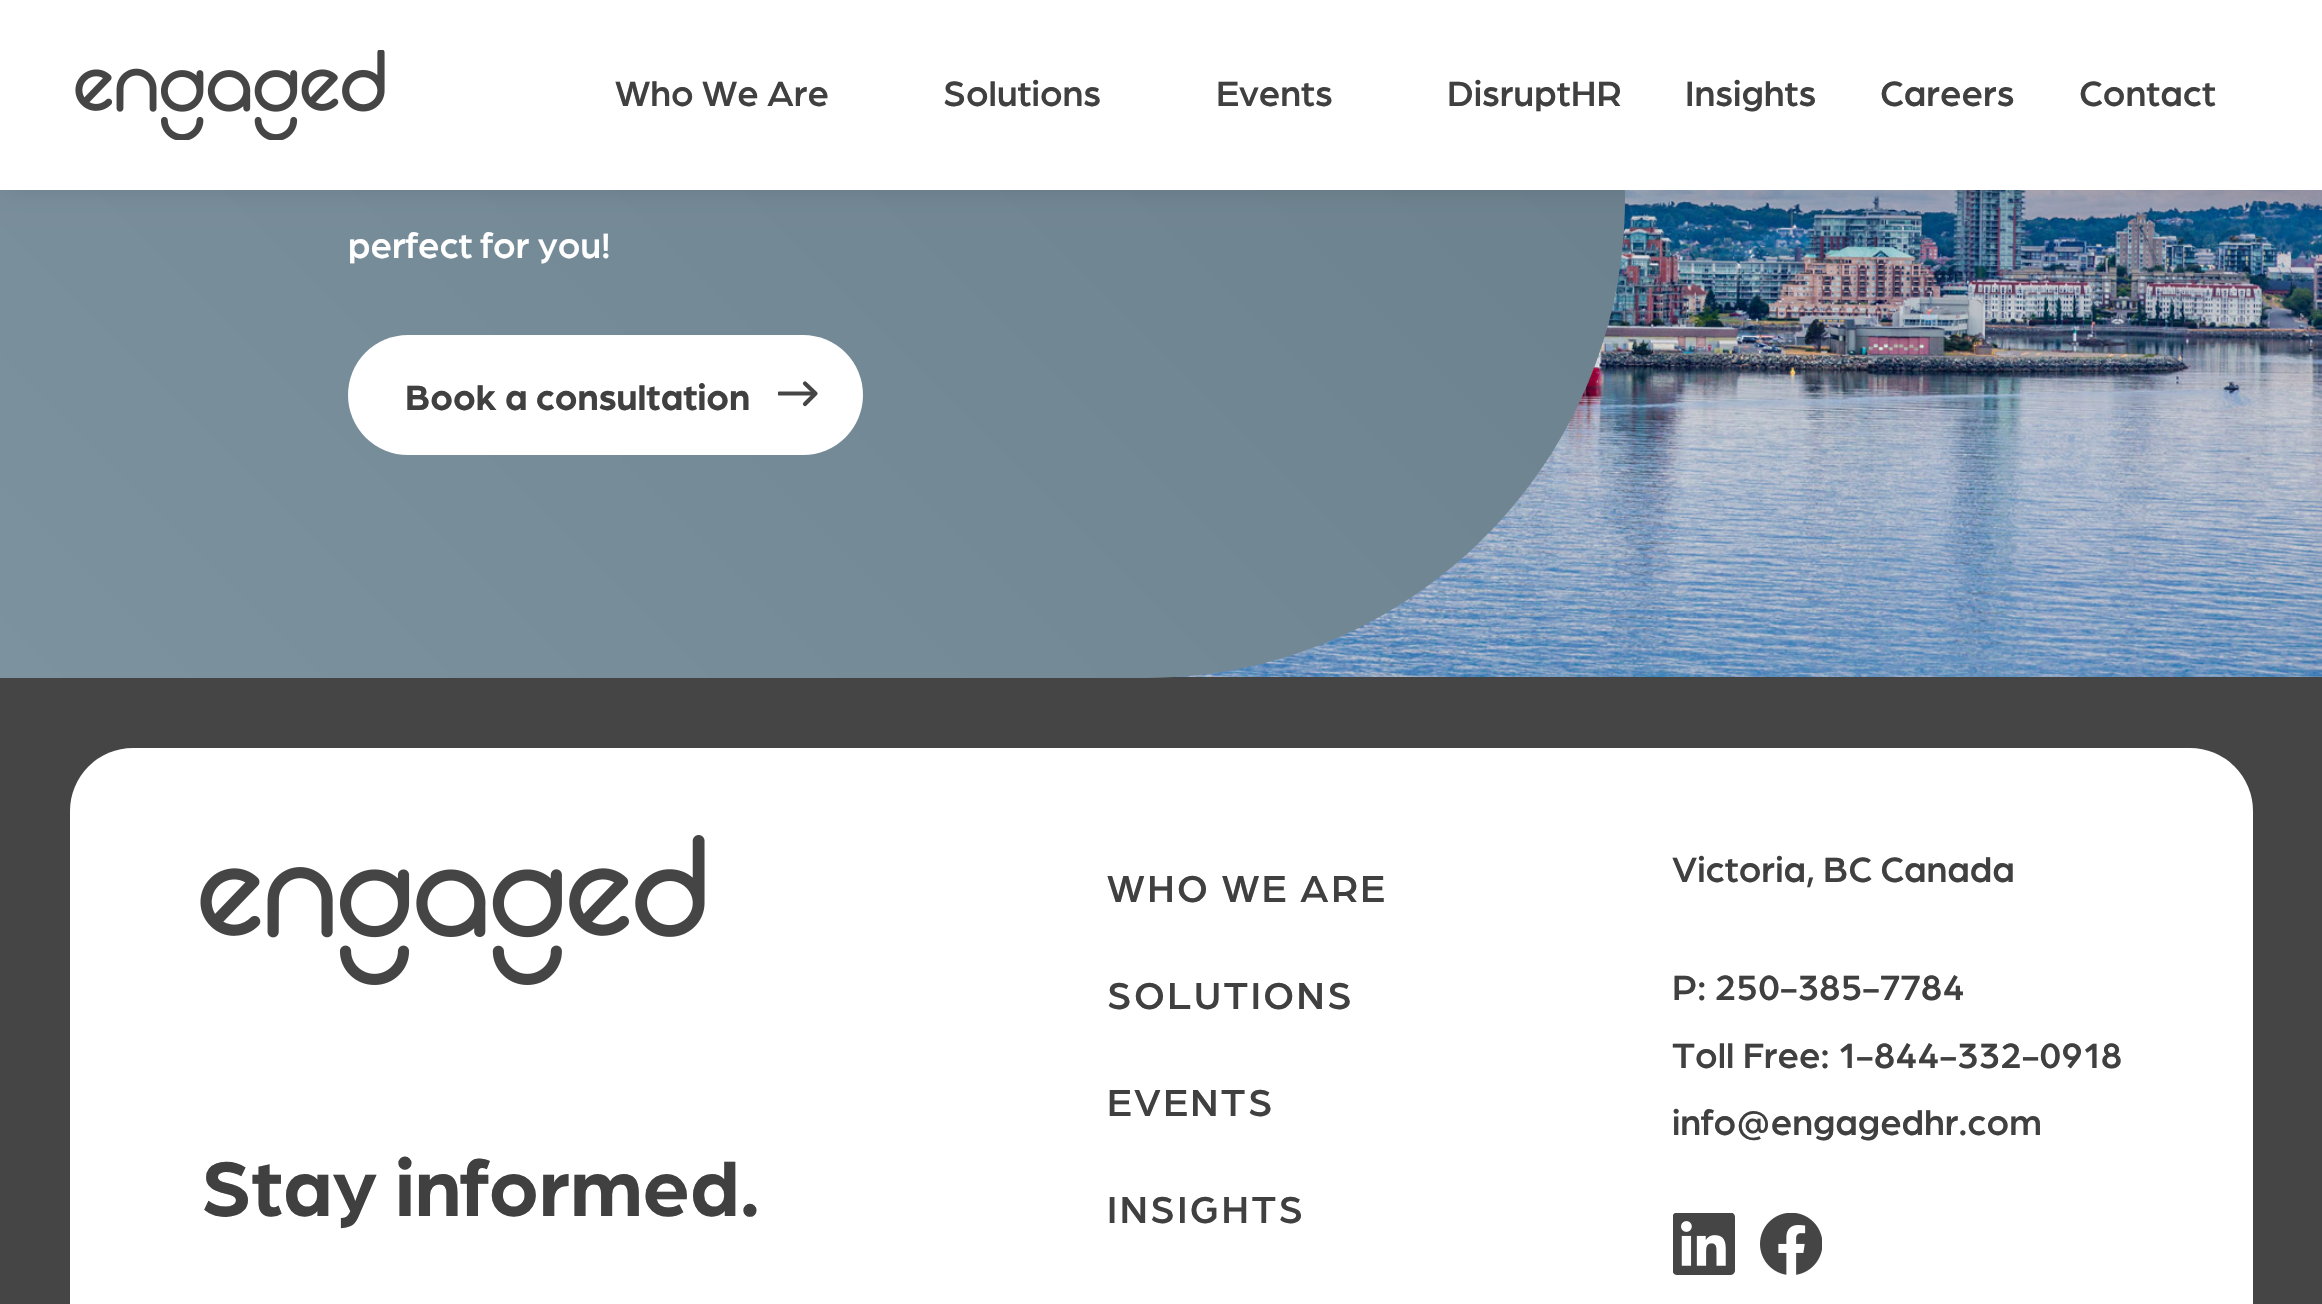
#include "include/core/SkBlurTypes.h"
#include "include/core/SkCanvas.h"
#include "include/core/SkData.h"
#include "include/core/SkFont.h"
#include "include/core/SkFontMgr.h"
#include "include/core/SkImage.h"
#include "include/core/SkMaskFilter.h"
#include "include/core/SkPaint.h"
#include "include/core/SkPathBuilder.h"
#include "include/core/SkTextBlob.h"
#include "include/effects/SkDashPathEffect.h"
#include "include/effects/SkGradientShader.h"
#include "include/utils/SkParsePath.h"

extern sk_sp<SkFontMgr> fontMgr;

static SkFont font(const char* family, int weight, float size, bool italic = false) {
    SkFontStyle style(weight, SkFontStyle::kNormal_Width,
        italic ? SkFontStyle::kItalic_Slant : SkFontStyle::kUpright_Slant);
    SkFont result(fontMgr->matchFamilyStyle(family, style), size);
    result.setSubpixel(true);
    return result;
}

static void drawLabel(SkCanvas* canvas, const char* s, float x, float y, const SkFont& font, SkColor color) {
    SkPaint ink(SkColor4f::FromColor(color));
    ink.setAntiAlias(true);
    canvas->drawString(s, x, y, font, ink);
}

static void drawTracked(SkCanvas* canvas, const char* s, float x, float y, const SkFont& font, const SkPaint& ink, float letter, float word) {
    std::vector<SkGlyphID> glyphs(font.countText(s, strlen(s), SkTextEncoding::kUTF8));
    std::vector<float> xs(glyphs.size());
    font.textToGlyphs(s, strlen(s), SkTextEncoding::kUTF8, glyphs);
    font.getXPos(glyphs, xs, x);
    float extra = 0;
    for (size_t i = 0; i < glyphs.size(); i++) {
        xs[i] += extra;
        extra += letter + word * (glyphs[i] == font.unicharToGlyph(' '));
    }
    canvas->drawTextBlob(SkTextBlob::MakeFromPosHGlyphs(glyphs, xs, y, font), 0, 0, ink);
}

static void fillRect(SkCanvas* canvas, float x, float y, float w, float h, SkColor color) {
    SkPaint ink(SkColor4f::FromColor(color));
    ink.setAntiAlias(true);
    canvas->drawRect(SkRect::MakeXYWH(x, y, w, h), ink);
}

static void fillRRect(SkCanvas* canvas, float x, float y, float w, float h, float radius, SkColor color) {
    SkPaint ink(SkColor4f::FromColor(color));
    ink.setAntiAlias(true);
    canvas->drawRoundRect(SkRect::MakeXYWH(x, y, w, h), radius, radius, ink);
}

static void drawPhoto(SkCanvas* canvas, const char* path, float x, float y, float w, float h) {
    auto image = SkImages::DeferredFromEncodedData(SkData::MakeFromFileName(path));
    canvas->drawImageRect(image, SkRect::MakeXYWH(x, y, w, h), SkSamplingOptions());
}

static SkPath parsePath(const char* data, bool evenOdd = false) {
    SkPath result = *SkParsePath::FromSVGString(data);
    if (evenOdd) result.setFillType(SkPathFillType::kEvenOdd);
    return result;
}

void draw(SkCanvas* canvas) {
    SkPaint paint;
    paint.setAntiAlias(true);
    canvas->clear(0xFF454545);
    drawPhoto(canvas, "assets/img2.png", 1176, 190, 1146, 487);
    {
        const SkColor colors[] = {0xFF7D929F, 0xFF697E8B};
        const float stops[] = {0, 1};
        const SkPoint ends[] = {{166, 844}, {1459, -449}};
        paint.setShader(SkGradientShader::MakeLinear(ends, colors, stops, 2, SkTileMode::kClamp));
        paint.setAlpha(255);
    }
    canvas->drawPath(parsePath("M0-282H1145C1410-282 1625-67 1625 198C1625 463 1410 678 1145 678H0Z"), paint);
    paint.setShader(nullptr);
    paint.setColor(0x1A000000);
    paint.setMaskFilter(SkMaskFilter::MakeBlur(kNormal_SkBlurStyle, 12.5f));
    canvas->drawRect(SkRect::MakeXYWH(0, 0, 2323, 190), paint);
    paint.setMaskFilter(nullptr);
    fillRect(canvas, 0, 0, 2322, 190, 0xFFFFFFFF);
    drawPhoto(canvas, "assets/img1.png", 75, 50, 310, 90);
    SkFont font1 = font("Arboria", 500, 37.5f);
    drawLabel(canvas, "Who We Are", 615, 106, font1, 0xFF404040);
    drawLabel(canvas, "Solutions", 943, 106, font1, 0xFF404040);
    drawLabel(canvas, "Events", 1216, 106, font1, 0xFF404040);
    drawLabel(canvas, "DisruptHR", 1447, 106, font1, 0xFF404040);
    drawLabel(canvas, "Insights", 1685, 106, font1, 0xFF404040);
    drawLabel(canvas, "Careers", 1880, 106, font1, 0xFF404040);
    drawLabel(canvas, "Contact", 2079, 106, font1, 0xFF404040);
    drawLabel(canvas, "perfect for you!", 348, 258, font1, 0xFFFFFFFF);
    fillRRect(canvas, 348, 335, 515, 120, 60, 0xFFFFFFFF);
    SkFont font2 = font("Arboria", 700, 37.5f);
    drawLabel(canvas, "Book a consultation", 405, 410, font2, 0xFF404040);
    paint.setStroke(true);
    paint.setStrokeWidth(4.2f);
    paint.setStrokeCap(SkPaint::kRound_Cap);
    paint.setStrokeJoin(SkPaint::kRound_Join);
    paint.setColor(0xFF454545);
    canvas->drawPath(parsePath("M805 404L815.5 393.5L805 383.5"), paint);
    canvas->save();
    canvas->clipRect(SkRect::MakeXYWH(778, 380, 40, 28));
    paint.setStrokeJoin(SkPaint::kMiter_Join);
    canvas->drawPath(parsePath("M779.5 393.5H813"), paint);
    canvas->restore();
    fillRRect(canvas, 70, 748, 2183, 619, 63, 0xFFFFFFFF);
    drawPhoto(canvas, "assets/img3.png", 200, 835, 505, 150);
    SkFont font3 = font("Arboria", 700, 82.5f);
    drawLabel(canvas, "Stay informed.", 201, 1216, font3, 0xFF404040);
    SkFont font4 = font("Arboria", 500, 40);
    paint.setStroke(false);
    paint.setColor(0xFF404040);
    drawTracked(canvas, "WHO WE ARE", 1107, 902, font4, paint, 2.5f, 0);
    drawTracked(canvas, "SOLUTIONS", 1107, 1009, font4, paint, 2.5f, 0);
    drawTracked(canvas, "EVENTS", 1107, 1116, font4, paint, 2.5f, 0);
    drawTracked(canvas, "INSIGHTS", 1107, 1223, font4, paint, 2.5f, 0);
    drawLabel(canvas, "Victoria, BC Canada", 1672, 882, font1, 0xFF404040);
    drawLabel(canvas, "P: 250-385-7784", 1672, 1000, font1, 0xFF404040);
    drawLabel(canvas, "Toll Free: 1-844-332-0918", 1672, 1068, font1, 0xFF404040);
    drawLabel(canvas, "info@engagedhr.com", 1672, 1135, font1, 0xFF404040);
    drawPhoto(canvas, "assets/img4.png", 1673, 1213, 62, 62);
    drawPhoto(canvas, "assets/img5.png", 1760, 1213, 62, 62);
}
